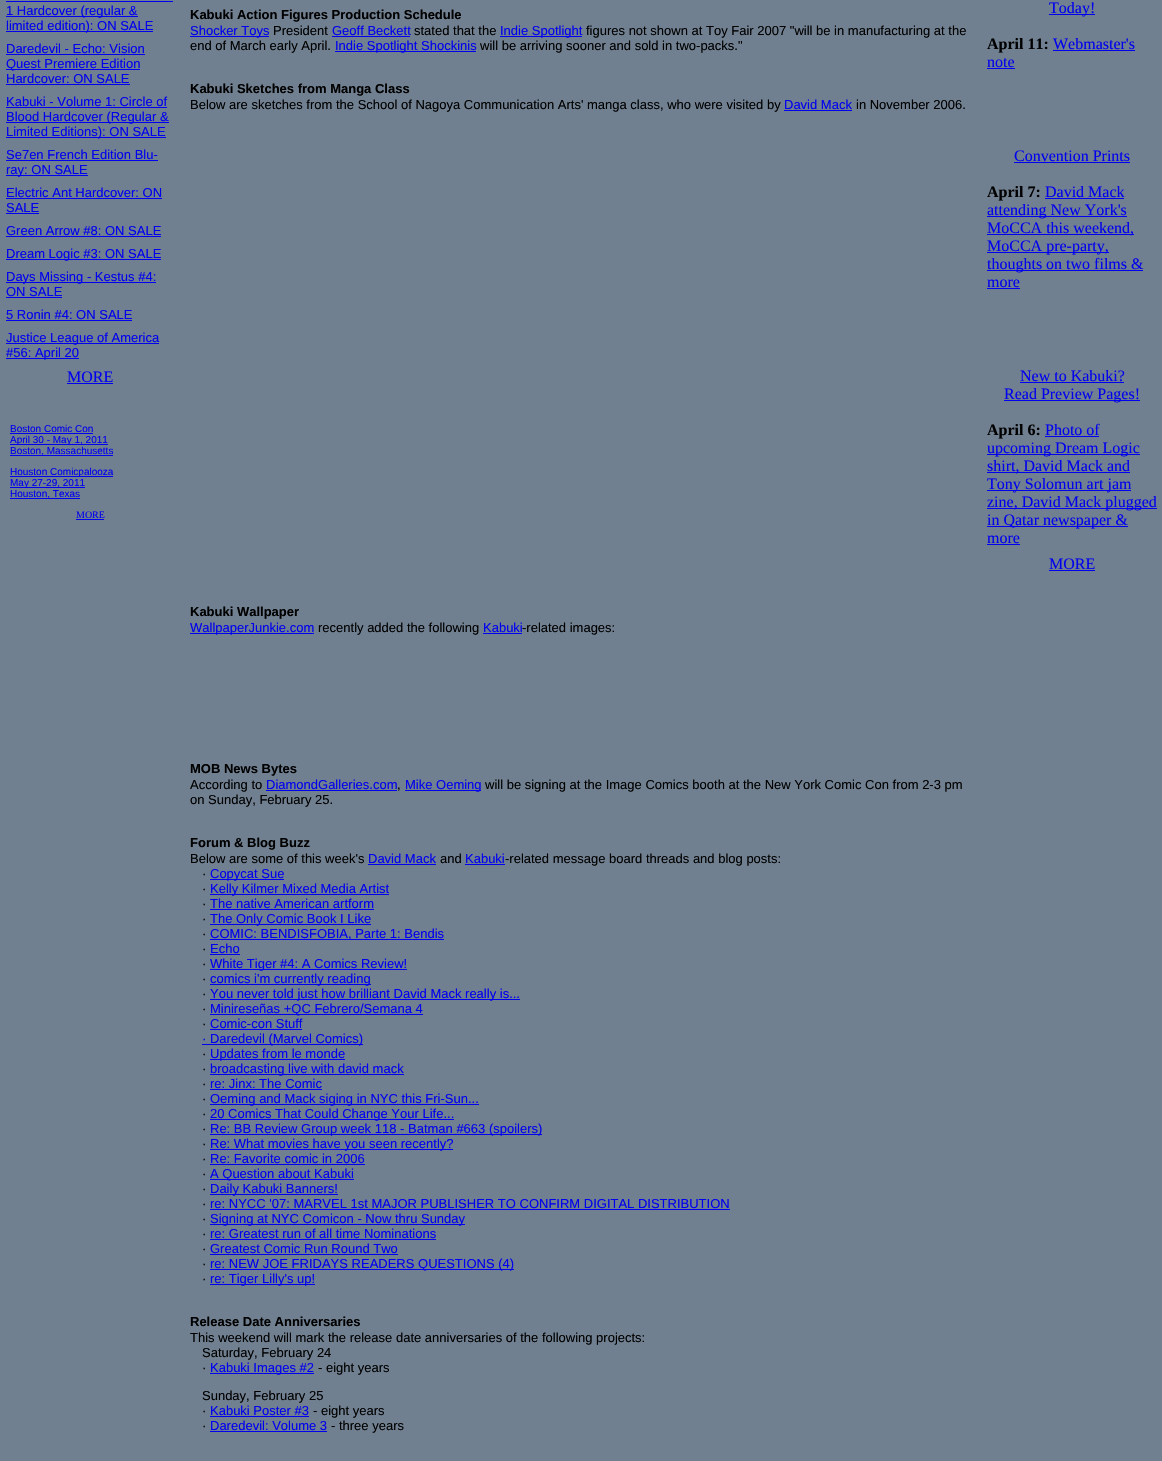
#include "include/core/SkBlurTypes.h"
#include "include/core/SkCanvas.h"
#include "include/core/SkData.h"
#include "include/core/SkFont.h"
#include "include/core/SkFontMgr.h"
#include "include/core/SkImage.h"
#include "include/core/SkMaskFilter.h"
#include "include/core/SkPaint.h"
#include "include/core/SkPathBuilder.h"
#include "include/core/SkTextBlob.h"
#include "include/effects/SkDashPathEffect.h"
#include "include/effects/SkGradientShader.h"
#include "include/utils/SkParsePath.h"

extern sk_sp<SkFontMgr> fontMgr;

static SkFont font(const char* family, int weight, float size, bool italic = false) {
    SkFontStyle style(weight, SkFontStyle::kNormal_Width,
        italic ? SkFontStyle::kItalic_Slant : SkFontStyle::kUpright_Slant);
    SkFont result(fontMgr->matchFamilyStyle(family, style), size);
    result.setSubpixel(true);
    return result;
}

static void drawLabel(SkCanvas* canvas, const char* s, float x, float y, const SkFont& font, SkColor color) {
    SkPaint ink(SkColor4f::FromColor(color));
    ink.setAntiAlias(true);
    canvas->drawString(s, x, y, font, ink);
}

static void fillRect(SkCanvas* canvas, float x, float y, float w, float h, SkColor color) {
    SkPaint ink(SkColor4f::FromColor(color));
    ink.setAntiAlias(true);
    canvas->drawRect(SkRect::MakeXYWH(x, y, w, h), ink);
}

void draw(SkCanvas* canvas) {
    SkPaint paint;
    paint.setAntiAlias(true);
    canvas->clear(0xFF708090);
    fillRect(canvas, 6, 16, 132, 1, 0xFF0000EE);
    SkFont font1 = font("Liberation Sans", 400, 13);
    drawLabel(canvas, "1 Hardcover (regular &", 6, 15, font1, 0xFF0000EE);
    fillRect(canvas, 6, 1, 167, 1, 0xFF0000EE);
    fillRect(canvas, 6, 31, 147, 1, 0xFF0000EE);
    drawLabel(canvas, "limited edition): ON SALE", 6, 30, font1, 0xFF0000EE);
    drawLabel(canvas, "Daredevil - Echo: Vision", 6, 53, font1, 0xFF0000EE);
    fillRect(canvas, 6, 54, 139, 1, 0xFF0000EE);
    fillRect(canvas, 6, 69, 134, 1, 0xFF0000EE);
    drawLabel(canvas, "Quest Premiere Edition", 6, 68, font1, 0xFF0000EE);
    drawLabel(canvas, "Hardcover: ON SALE", 6, 83, font1, 0xFF0000EE);
    fillRect(canvas, 6, 84, 124, 1, 0xFF0000EE);
    drawLabel(canvas, "Kabuki - Volume 1: Circle of", 6, 106, font1, 0xFF0000EE);
    fillRect(canvas, 6, 107, 161, 1, 0xFF0000EE);
    fillRect(canvas, 6, 122, 163, 1, 0xFF0000EE);
    drawLabel(canvas, "Blood Hardcover (Regular &", 6, 121, font1, 0xFF0000EE);
    fillRect(canvas, 6, 137, 160, 1, 0xFF0000EE);
    drawLabel(canvas, "Limited Editions): ON SALE", 6, 136, font1, 0xFF0000EE);
    drawLabel(canvas, "Se7en French Edition Blu-", 6, 159, font1, 0xFF0000EE);
    fillRect(canvas, 6, 160, 152, 1, 0xFF0000EE);
    fillRect(canvas, 6, 175, 82, 1, 0xFF0000EE);
    drawLabel(canvas, "ray: ON SALE", 6, 174, font1, 0xFF0000EE);
    drawLabel(canvas, "Electric Ant Hardcover: ON", 6, 197, font1, 0xFF0000EE);
    fillRect(canvas, 6, 198, 156, 1, 0xFF0000EE);
    drawLabel(canvas, "SALE", 6, 212, font1, 0xFF0000EE);
    fillRect(canvas, 6, 213, 33, 1, 0xFF0000EE);
    drawLabel(canvas, "Green Arrow #8: ON SALE", 6, 235, font1, 0xFF0000EE);
    fillRect(canvas, 6, 236, 155, 1, 0xFF0000EE);
    fillRect(canvas, 6, 259, 155, 1, 0xFF0000EE);
    drawLabel(canvas, "Dream Logic #3: ON SALE", 6, 258, font1, 0xFF0000EE);
    fillRect(canvas, 6, 282, 150, 1, 0xFF0000EE);
    drawLabel(canvas, "Days Missing - Kestus #4:", 6, 281, font1, 0xFF0000EE);
    drawLabel(canvas, "ON SALE", 6, 296, font1, 0xFF0000EE);
    fillRect(canvas, 6, 297, 56, 1, 0xFF0000EE);
    drawLabel(canvas, "5 Ronin #4: ON SALE", 6, 319, font1, 0xFF0000EE);
    fillRect(canvas, 6, 320, 126, 1, 0xFF0000EE);
    fillRect(canvas, 6, 343, 153, 1, 0xFF0000EE);
    drawLabel(canvas, "Justice League of America", 6, 342, font1, 0xFF0000EE);
    fillRect(canvas, 6, 358, 73, 1, 0xFF0000EE);
    drawLabel(canvas, "#56: April 20", 6, 357, font1, 0xFF0000EE);
    SkFont font2 = font("Liberation Serif", 400, 16);
    drawLabel(canvas, "MORE", 67, 382, font2, 0xFF0000EE);
    fillRect(canvas, 67, 383, 46, 1, 0xFF0000EE);
    SkFont font3 = font("Liberation Sans", 400, 10);
    drawLabel(canvas, "Boston Comic Con", 10, 432, font3, 0xFF0000EE);
    fillRect(canvas, 10, 433, 83, 1, 0xFF0000EE);
    fillRect(canvas, 10, 444, 98, 1, 0xFF0000EE);
    drawLabel(canvas, "April 30 - May 1, 2011", 10, 443, font3, 0xFF0000EE);
    fillRect(canvas, 10, 455, 103, 1, 0xFF0000EE);
    drawLabel(canvas, "Boston, Massachusetts", 10, 454, font3, 0xFF0000EE);
    fillRect(canvas, 10, 476, 103, 1, 0xFF0000EE);
    drawLabel(canvas, "Houston Comicpalooza", 10, 475, font3, 0xFF0000EE);
    fillRect(canvas, 10, 487, 75, 1, 0xFF0000EE);
    drawLabel(canvas, "May 27-29, 2011", 10, 486, font3, 0xFF0000EE);
    fillRect(canvas, 10, 498, 70, 1, 0xFF0000EE);
    drawLabel(canvas, "Houston, Texas", 10, 497, font3, 0xFF0000EE);
    SkFont font4 = font("Liberation Serif", 400, 10);
    drawLabel(canvas, "MORE", 76, 518, font4, 0xFF0000EE);
    fillRect(canvas, 76, 519, 28, 1, 0xFF0000EE);
    SkFont font5 = font("Liberation Sans", 700, 13);
    drawLabel(canvas, "Kabuki Action Figures Production Schedule", 190, 19, font5, 0xFF000000);
    fillRect(canvas, 190, 36, 79, 1, 0xFF0000EE);
    drawLabel(canvas, "Shocker Toys", 190, 35, font1, 0xFF0000EE);
    drawLabel(canvas, "President", 273, 35, font1, 0xFF000000);
    drawLabel(canvas, "Geoff Beckett", 332, 35, font1, 0xFF0000EE);
    fillRect(canvas, 332, 36, 78, 1, 0xFF0000EE);
    drawLabel(canvas, "stated that the", 414, 35, font1, 0xFF000000);
    fillRect(canvas, 500, 36, 82, 1, 0xFF0000EE);
    drawLabel(canvas, "Indie Spotlight", 500, 35, font1, 0xFF0000EE);
    drawLabel(canvas, "figures not shown at Toy Fair 2007 \"will be in manufacturing at the", 586, 35, font1, 0xFF000000);
    drawLabel(canvas, "end of March early April.", 190, 50, font1, 0xFF000000);
    fillRect(canvas, 335, 51, 141, 1, 0xFF0000EE);
    drawLabel(canvas, "Indie Spotlight Shockinis", 335, 50, font1, 0xFF0000EE);
    drawLabel(canvas, "will be arriving sooner and sold in two-packs.\"", 480, 50, font1, 0xFF000000);
    drawLabel(canvas, "Kabuki Sketches from Manga Class", 190, 93, font5, 0xFF000000);
    drawLabel(canvas, "Below are sketches from the School of Nagoya Communication Arts' manga class, who were visited by", 190, 109, font1, 0xFF000000);
    drawLabel(canvas, "David Mack", 784, 109, font1, 0xFF0000EE);
    fillRect(canvas, 784, 110, 68, 1, 0xFF0000EE);
    drawLabel(canvas, "in November 2006.", 856, 109, font1, 0xFF000000);
    drawLabel(canvas, "Kabuki Wallpaper", 190, 616, font5, 0xFF000000);
    fillRect(canvas, 190, 633, 124, 1, 0xFF0000EE);
    drawLabel(canvas, "WallpaperJunkie.com", 190, 632, font1, 0xFF0000EE);
    drawLabel(canvas, "recently added the following", 318, 632, font1, 0xFF000000);
    drawLabel(canvas, "Kabuki", 483, 632, font1, 0xFF0000EE);
    drawLabel(canvas, "-related images:", 522, 632, font1, 0xFF000000);
    fillRect(canvas, 483, 633, 39, 1, 0xFF0000EE);
    drawLabel(canvas, "MOB News Bytes", 190, 773, font5, 0xFF000000);
    drawLabel(canvas, "According to", 190, 789, font1, 0xFF000000);
    drawLabel(canvas, "DiamondGalleries.com", 266, 789, font1, 0xFF0000EE);
    drawLabel(canvas, ",", 397, 789, font1, 0xFF000000);
    fillRect(canvas, 266, 790, 131, 1, 0xFF0000EE);
    fillRect(canvas, 405, 790, 76, 1, 0xFF0000EE);
    drawLabel(canvas, "Mike Oeming", 405, 789, font1, 0xFF0000EE);
    drawLabel(canvas, "will be signing at the Image Comics booth at the New York Comic Con from 2-3 pm", 485, 789, font1, 0xFF000000);
    drawLabel(canvas, "on Sunday, February 25.", 190, 804, font1, 0xFF000000);
    drawLabel(canvas, "Forum & Blog Buzz", 190, 847, font5, 0xFF000000);
    drawLabel(canvas, "Below are some of this week's", 190, 863, font1, 0xFF000000);
    drawLabel(canvas, "David Mack", 368, 863, font1, 0xFF0000EE);
    fillRect(canvas, 368, 864, 68, 1, 0xFF0000EE);
    drawLabel(canvas, "and", 440, 863, font1, 0xFF000000);
    drawLabel(canvas, "Kabuki", 465, 863, font1, 0xFF0000EE);
    drawLabel(canvas, "-related message board threads and blog posts:", 505, 863, font1, 0xFF000000);
    fillRect(canvas, 465, 864, 40, 1, 0xFF0000EE);
    drawLabel(canvas, "·", 202, 878, font1, 0xFF000000);
    fillRect(canvas, 210, 879, 74, 1, 0xFF0000EE);
    drawLabel(canvas, "Copycat Sue", 210, 878, font1, 0xFF0000EE);
    drawLabel(canvas, "·", 202, 893, font1, 0xFF000000);
    fillRect(canvas, 210, 894, 179, 1, 0xFF0000EE);
    drawLabel(canvas, "Kelly Kilmer Mixed Media Artist", 210, 893, font1, 0xFF0000EE);
    drawLabel(canvas, "·", 202, 908, font1, 0xFF000000);
    drawLabel(canvas, "The native American artform", 210, 908, font1, 0xFF0000EE);
    fillRect(canvas, 210, 909, 164, 1, 0xFF0000EE);
    drawLabel(canvas, "·", 202, 923, font1, 0xFF000000);
    fillRect(canvas, 210, 924, 161, 1, 0xFF0000EE);
    drawLabel(canvas, "The Only Comic Book I Like", 210, 923, font1, 0xFF0000EE);
    drawLabel(canvas, "·", 202, 938, font1, 0xFF000000);
    fillRect(canvas, 210, 939, 234, 1, 0xFF0000EE);
    drawLabel(canvas, "COMIC: BENDISFOBIA, Parte 1: Bendis", 210, 938, font1, 0xFF0000EE);
    drawLabel(canvas, "·", 202, 953, font1, 0xFF000000);
    drawLabel(canvas, "Echo", 210, 953, font1, 0xFF0000EE);
    fillRect(canvas, 210, 954, 30, 1, 0xFF0000EE);
    drawLabel(canvas, "·", 202, 968, font1, 0xFF000000);
    fillRect(canvas, 210, 969, 197, 1, 0xFF0000EE);
    drawLabel(canvas, "White Tiger #4: A Comics Review!", 210, 968, font1, 0xFF0000EE);
    drawLabel(canvas, "·", 202, 983, font1, 0xFF000000);
    fillRect(canvas, 210, 984, 161, 1, 0xFF0000EE);
    drawLabel(canvas, "comics i'm currently reading", 210, 983, font1, 0xFF0000EE);
    drawLabel(canvas, "·", 202, 998, font1, 0xFF000000);
    fillRect(canvas, 210, 999, 310, 1, 0xFF0000EE);
    drawLabel(canvas, "You never told just how brilliant David Mack really is...", 210, 998, font1, 0xFF0000EE);
    drawLabel(canvas, "·", 202, 1013, font1, 0xFF000000);
    fillRect(canvas, 210, 1014, 213, 1, 0xFF0000EE);
    drawLabel(canvas, "Minireseñas +QC Febrero/Semana 4", 210, 1013, font1, 0xFF0000EE);
    drawLabel(canvas, "·", 202, 1028, font1, 0xFF000000);
    drawLabel(canvas, "Comic-con Stuff", 210, 1028, font1, 0xFF0000EE);
    fillRect(canvas, 210, 1029, 92, 1, 0xFF0000EE);
    fillRect(canvas, 202, 1044, 161, 1, 0xFF0000EE);
    drawLabel(canvas, "· Daredevil (Marvel Comics)", 202, 1043, font1, 0xFF0000EE);
    drawLabel(canvas, "·", 202, 1058, font1, 0xFF000000);
    fillRect(canvas, 210, 1059, 135, 1, 0xFF0000EE);
    drawLabel(canvas, "Updates from le monde", 210, 1058, font1, 0xFF0000EE);
    drawLabel(canvas, "·", 202, 1073, font1, 0xFF000000);
    fillRect(canvas, 210, 1074, 194, 1, 0xFF0000EE);
    drawLabel(canvas, "broadcasting live with david mack", 210, 1073, font1, 0xFF0000EE);
    drawLabel(canvas, "·", 202, 1088, font1, 0xFF000000);
    drawLabel(canvas, "re: Jinx: The Comic", 210, 1088, font1, 0xFF0000EE);
    fillRect(canvas, 210, 1089, 112, 1, 0xFF0000EE);
    drawLabel(canvas, "·", 202, 1103, font1, 0xFF000000);
    fillRect(canvas, 210, 1104, 269, 1, 0xFF0000EE);
    drawLabel(canvas, "Oeming and Mack siging in NYC this Fri-Sun...", 210, 1103, font1, 0xFF0000EE);
    drawLabel(canvas, "·", 202, 1118, font1, 0xFF000000);
    fillRect(canvas, 210, 1119, 244, 1, 0xFF0000EE);
    drawLabel(canvas, "20 Comics That Could Change Your Life...", 210, 1118, font1, 0xFF0000EE);
    drawLabel(canvas, "·", 202, 1133, font1, 0xFF000000);
    fillRect(canvas, 210, 1134, 332, 1, 0xFF0000EE);
    drawLabel(canvas, "Re: BB Review Group week 118 - Batman #663 (spoilers)", 210, 1133, font1, 0xFF0000EE);
    drawLabel(canvas, "·", 202, 1148, font1, 0xFF000000);
    fillRect(canvas, 210, 1149, 243, 1, 0xFF0000EE);
    drawLabel(canvas, "Re: What movies have you seen recently?", 210, 1148, font1, 0xFF0000EE);
    drawLabel(canvas, "·", 202, 1163, font1, 0xFF000000);
    drawLabel(canvas, "Re: Favorite comic in 2006", 210, 1163, font1, 0xFF0000EE);
    fillRect(canvas, 210, 1164, 155, 1, 0xFF0000EE);
    drawLabel(canvas, "·", 202, 1178, font1, 0xFF000000);
    fillRect(canvas, 210, 1179, 144, 1, 0xFF0000EE);
    drawLabel(canvas, "A Question about Kabuki", 210, 1178, font1, 0xFF0000EE);
    drawLabel(canvas, "·", 202, 1193, font1, 0xFF000000);
    fillRect(canvas, 210, 1194, 128, 1, 0xFF0000EE);
    drawLabel(canvas, "Daily Kabuki Banners!", 210, 1193, font1, 0xFF0000EE);
    drawLabel(canvas, "·", 202, 1208, font1, 0xFF000000);
    drawLabel(canvas, "re: NYCC '07: MARVEL 1st MAJOR PUBLISHER TO CONFIRM DIGITAL DISTRIBUTION", 210, 1208, font1, 0xFF0000EE);
    fillRect(canvas, 210, 1209, 520, 1, 0xFF0000EE);
    drawLabel(canvas, "·", 202, 1223, font1, 0xFF000000);
    fillRect(canvas, 210, 1224, 255, 1, 0xFF0000EE);
    drawLabel(canvas, "Signing at NYC Comicon - Now thru Sunday", 210, 1223, font1, 0xFF0000EE);
    drawLabel(canvas, "·", 202, 1238, font1, 0xFF000000);
    drawLabel(canvas, "re: Greatest run of all time Nominations", 210, 1238, font1, 0xFF0000EE);
    fillRect(canvas, 210, 1239, 226, 1, 0xFF0000EE);
    drawLabel(canvas, "·", 202, 1253, font1, 0xFF000000);
    drawLabel(canvas, "Greatest Comic Run Round Two", 210, 1253, font1, 0xFF0000EE);
    fillRect(canvas, 210, 1254, 188, 1, 0xFF0000EE);
    drawLabel(canvas, "·", 202, 1268, font1, 0xFF000000);
    fillRect(canvas, 210, 1269, 304, 1, 0xFF0000EE);
    drawLabel(canvas, "re: NEW JOE FRIDAYS READERS QUESTIONS (4)", 210, 1268, font1, 0xFF0000EE);
    drawLabel(canvas, "·", 202, 1283, font1, 0xFF000000);
    fillRect(canvas, 210, 1284, 105, 1, 0xFF0000EE);
    drawLabel(canvas, "re: Tiger Lilly's up!", 210, 1283, font1, 0xFF0000EE);
    drawLabel(canvas, "Release Date Anniversaries", 190, 1326, font5, 0xFF000000);
    drawLabel(canvas, "This weekend will mark the release date anniversaries of the following projects:", 190, 1342, font1, 0xFF000000);
    drawLabel(canvas, "Saturday, February 24", 202, 1357, font1, 0xFF000000);
    drawLabel(canvas, "·", 202, 1372, font1, 0xFF000000);
    fillRect(canvas, 210, 1373, 104, 1, 0xFF0000EE);
    drawLabel(canvas, "Kabuki Images #2", 210, 1372, font1, 0xFF0000EE);
    drawLabel(canvas, "- eight years", 318, 1372, font1, 0xFF000000);
    drawLabel(canvas, "Sunday, February 25", 202, 1400, font1, 0xFF000000);
    drawLabel(canvas, "·", 202, 1415, font1, 0xFF000000);
    drawLabel(canvas, "Kabuki Poster #3", 210, 1415, font1, 0xFF0000EE);
    fillRect(canvas, 210, 1416, 99, 1, 0xFF0000EE);
    drawLabel(canvas, "- eight years", 313, 1415, font1, 0xFF000000);
    drawLabel(canvas, "·", 202, 1430, font1, 0xFF000000);
    drawLabel(canvas, "Daredevil: Volume 3", 210, 1430, font1, 0xFF0000EE);
    fillRect(canvas, 210, 1431, 117, 1, 0xFF0000EE);
    drawLabel(canvas, "- three years", 331, 1430, font1, 0xFF000000);
    fillRect(canvas, 1049, 14, 46, 1, 0xFF0000EE);
    drawLabel(canvas, "Today!", 1049, 13, font2, 0xFF0000EE);
    SkFont font6 = font("Liberation Serif", 700, 16);
    drawLabel(canvas, "April 11:", 987, 49, font6, 0xFF000000);
    drawLabel(canvas, "Webmaster's", 1053, 49, font2, 0xFF0000EE);
    fillRect(canvas, 1053, 50, 82, 1, 0xFF0000EE);
    drawLabel(canvas, "note", 987, 67, font2, 0xFF0000EE);
    fillRect(canvas, 987, 68, 28, 1, 0xFF0000EE);
    drawLabel(canvas, "Convention Prints", 1014, 161, font2, 0xFF0000EE);
    fillRect(canvas, 1014, 162, 116, 1, 0xFF0000EE);
    drawLabel(canvas, "April 7:", 987, 197, font6, 0xFF000000);
    drawLabel(canvas, "David Mack", 1045, 197, font2, 0xFF0000EE);
    fillRect(canvas, 1045, 198, 79, 1, 0xFF0000EE);
    fillRect(canvas, 987, 216, 140, 1, 0xFF0000EE);
    drawLabel(canvas, "attending New York's", 987, 215, font2, 0xFF0000EE);
    fillRect(canvas, 987, 234, 147, 1, 0xFF0000EE);
    drawLabel(canvas, "MoCCA this weekend,", 987, 233, font2, 0xFF0000EE);
    fillRect(canvas, 987, 252, 122, 1, 0xFF0000EE);
    drawLabel(canvas, "MoCCA pre-party,", 987, 251, font2, 0xFF0000EE);
    fillRect(canvas, 987, 270, 156, 1, 0xFF0000EE);
    drawLabel(canvas, "thoughts on two films &", 987, 269, font2, 0xFF0000EE);
    drawLabel(canvas, "more", 987, 287, font2, 0xFF0000EE);
    fillRect(canvas, 987, 288, 33, 1, 0xFF0000EE);
    drawLabel(canvas, "New to Kabuki?", 1020, 381, font2, 0xFF0000EE);
    fillRect(canvas, 1020, 382, 104, 1, 0xFF0000EE);
    fillRect(canvas, 1004, 400, 136, 1, 0xFF0000EE);
    drawLabel(canvas, "Read Preview Pages!", 1004, 399, font2, 0xFF0000EE);
    drawLabel(canvas, "April 6:", 987, 435, font6, 0xFF000000);
    drawLabel(canvas, "Photo of", 1045, 435, font2, 0xFF0000EE);
    fillRect(canvas, 1045, 436, 54, 1, 0xFF0000EE);
    fillRect(canvas, 987, 454, 153, 1, 0xFF0000EE);
    drawLabel(canvas, "upcoming Dream Logic", 987, 453, font2, 0xFF0000EE);
    fillRect(canvas, 987, 472, 143, 1, 0xFF0000EE);
    drawLabel(canvas, "shirt, David Mack and", 987, 471, font2, 0xFF0000EE);
    fillRect(canvas, 987, 490, 144, 1, 0xFF0000EE);
    drawLabel(canvas, "Tony Solomun art jam", 987, 489, font2, 0xFF0000EE);
    fillRect(canvas, 987, 508, 170, 1, 0xFF0000EE);
    drawLabel(canvas, "zine, David Mack plugged", 987, 507, font2, 0xFF0000EE);
    fillRect(canvas, 987, 526, 141, 1, 0xFF0000EE);
    drawLabel(canvas, "in Qatar newspaper &", 987, 525, font2, 0xFF0000EE);
    drawLabel(canvas, "more", 987, 543, font2, 0xFF0000EE);
    fillRect(canvas, 987, 544, 33, 1, 0xFF0000EE);
    drawLabel(canvas, "MORE", 1049, 569, font2, 0xFF0000EE);
    fillRect(canvas, 1049, 570, 46, 1, 0xFF0000EE);
}
